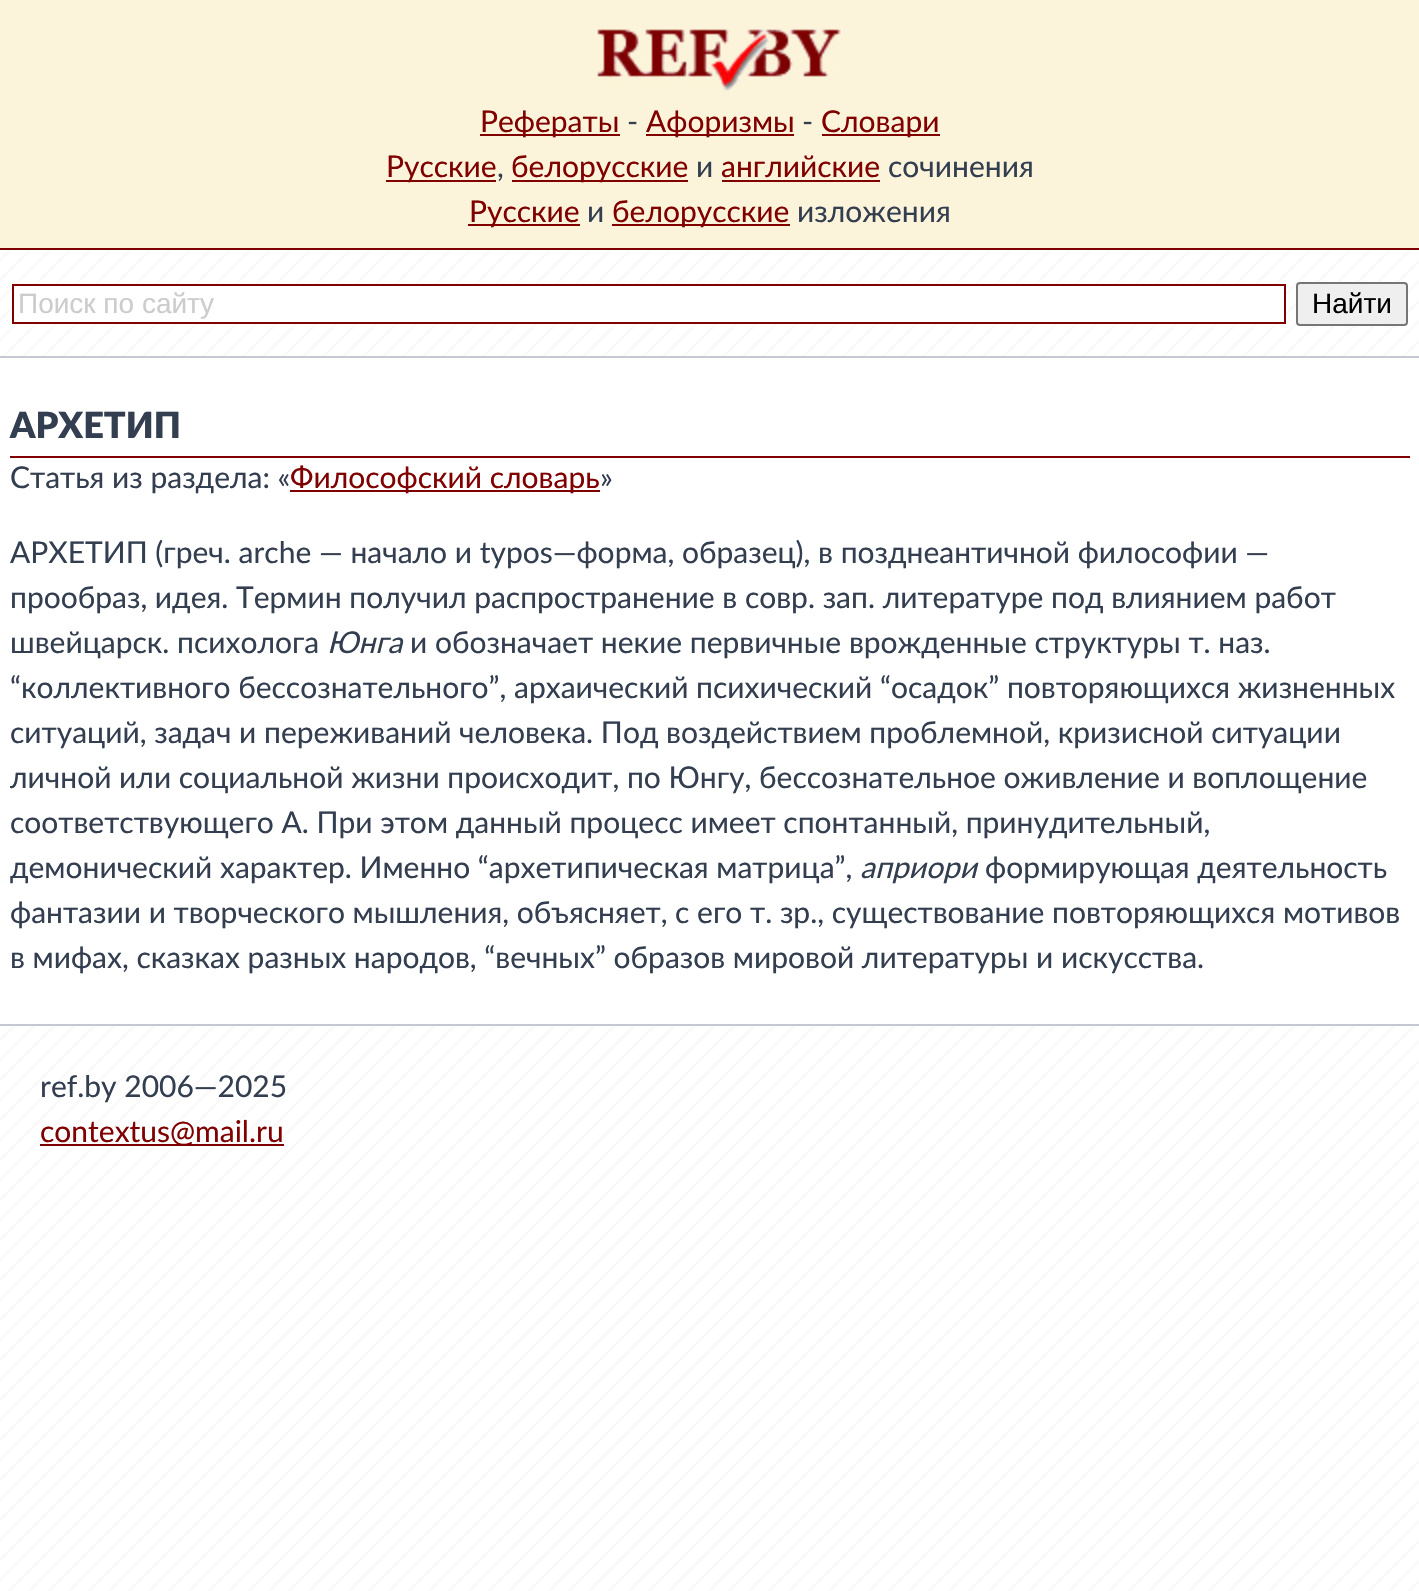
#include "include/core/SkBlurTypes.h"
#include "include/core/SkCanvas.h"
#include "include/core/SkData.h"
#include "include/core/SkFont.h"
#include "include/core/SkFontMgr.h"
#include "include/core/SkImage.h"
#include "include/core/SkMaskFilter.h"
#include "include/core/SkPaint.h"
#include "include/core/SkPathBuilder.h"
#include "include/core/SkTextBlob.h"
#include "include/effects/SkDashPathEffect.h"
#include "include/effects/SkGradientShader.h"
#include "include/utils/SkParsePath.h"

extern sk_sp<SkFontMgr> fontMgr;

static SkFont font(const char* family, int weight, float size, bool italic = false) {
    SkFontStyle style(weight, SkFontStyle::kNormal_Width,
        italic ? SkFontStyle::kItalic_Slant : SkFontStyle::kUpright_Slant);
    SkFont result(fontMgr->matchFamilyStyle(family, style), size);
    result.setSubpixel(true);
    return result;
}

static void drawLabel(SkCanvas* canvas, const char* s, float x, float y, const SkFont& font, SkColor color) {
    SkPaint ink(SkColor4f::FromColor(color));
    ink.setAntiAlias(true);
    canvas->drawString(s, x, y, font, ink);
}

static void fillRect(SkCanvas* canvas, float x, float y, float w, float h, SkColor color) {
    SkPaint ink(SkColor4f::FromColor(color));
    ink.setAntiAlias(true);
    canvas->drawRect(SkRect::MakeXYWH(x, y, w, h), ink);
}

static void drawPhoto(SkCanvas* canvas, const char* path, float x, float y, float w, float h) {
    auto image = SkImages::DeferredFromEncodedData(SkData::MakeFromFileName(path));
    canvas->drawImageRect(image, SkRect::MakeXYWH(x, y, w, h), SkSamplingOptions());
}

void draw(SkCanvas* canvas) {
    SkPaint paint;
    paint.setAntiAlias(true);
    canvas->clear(0xFFFFFFFF);
    drawPhoto(canvas, "assets/img1.png", 0, 250, 1419, 1341);
    fillRect(canvas, 0, 0, 1419, 248, 0xFFFCF4DA);
    fillRect(canvas, 0, 248, 1419, 2, 0xFF800000);
    drawPhoto(canvas, "assets/img2.png", 597, 29, 244, 62);
    fillRect(canvas, 480, 134, 140, 2, 0xFF800000);
    SkFont font1 = font("Lato", 400, 30);
    drawLabel(canvas, "Рефераты", 480, 132, font1, 0xFF800000);
    drawLabel(canvas, "-", 627, 132, font1, 0xFF333E50);
    fillRect(canvas, 646, 134, 148, 2, 0xFF800000);
    drawLabel(canvas, "Афоризмы", 646, 132, font1, 0xFF800000);
    drawLabel(canvas, "-", 802, 132, font1, 0xFF333E50);
    fillRect(canvas, 822, 134, 118, 2, 0xFF800000);
    drawLabel(canvas, "Словари", 821, 132, font1, 0xFF800000);
    fillRect(canvas, 386, 180, 110, 2, 0xFF800000);
    drawLabel(canvas, "Русские", 386, 177, font1, 0xFF800000);
    drawLabel(canvas, ",", 497, 177, font1, 0xFF333E50);
    fillRect(canvas, 512, 180, 176, 2, 0xFF800000);
    drawLabel(canvas, "белорусские", 511, 177, font1, 0xFF800000);
    drawLabel(canvas, "и", 696, 177, font1, 0xFF333E50);
    drawLabel(canvas, "английские", 721, 177, font1, 0xFF800000);
    fillRect(canvas, 722, 180, 158, 2, 0xFF800000);
    drawLabel(canvas, "сочинения", 888, 177, font1, 0xFF333E50);
    fillRect(canvas, 468, 224, 112, 2, 0xFF800000);
    drawLabel(canvas, "Русские", 469, 222, font1, 0xFF800000);
    drawLabel(canvas, "и", 587, 222, font1, 0xFF333E50);
    fillRect(canvas, 612, 224, 178, 2, 0xFF800000);
    drawLabel(canvas, "белорусские", 612, 222, font1, 0xFF800000);
    drawLabel(canvas, "изложения", 797, 222, font1, 0xFF333E50);
    paint.setColor(0xFFFFFFFF);
    canvas->drawRect(SkRect::MakeXYWH(13, 285, 1272, 38), paint);
    paint.setStroke(true);
    paint.setStrokeWidth(2);
    paint.setColor(0xFF800000);
    canvas->drawRect(SkRect::MakeXYWH(13, 285, 1272, 38), paint);
    SkFont font2 = font("Liberation Sans", 400, 28);
    drawLabel(canvas, "Поиск по сайту", 18, 313, font2, 0xFFCCCCCC);
    paint.setStroke(false);
    paint.setColor(0xFFEFEFEF);
    canvas->drawRoundRect(SkRect::MakeXYWH(1297, 283, 110, 42), 3, 3, paint);
    paint.setStroke(true);
    paint.setColor(0xFF767676);
    canvas->drawRoundRect(SkRect::MakeXYWH(1297, 283, 110, 42), 3, 3, paint);
    drawLabel(canvas, "Найти", 1312, 313, font2, 0xFF000000);
    fillRect(canvas, 0, 358, 1419, 666, 0xFFFFFFFF);
    fillRect(canvas, 0, 356, 1419, 2, 0xFFC5C8D0);
    fillRect(canvas, 0, 1024, 1419, 2, 0xFFC5C8D0);
    SkFont font3 = font("Lato", 900, 36);
    drawLabel(canvas, "АРХЕТИП", 10, 438, font3, 0xFF333E50);
    fillRect(canvas, 10, 456, 1400, 2, 0xFF800000);
    drawLabel(canvas, "Статья из раздела: «", 10, 488, font1, 0xFF333E50);
    fillRect(canvas, 290, 490, 310, 2, 0xFF800000);
    drawLabel(canvas, "Философский словарь", 290, 488, font1, 0xFF800000);
    drawLabel(canvas, "»", 600, 488, font1, 0xFF333E50);
    drawLabel(canvas, "АРХЕТИП (греч. arche — начало и typos—форма, образец), в позднеантичной философии —", 10, 563, font1, 0xFF333E50);
    drawLabel(canvas, "прообраз, идея. Термин получил распространение в совр. зап. литературе под влиянием работ", 10, 608, font1, 0xFF333E50);
    drawLabel(canvas, "швейцарск. психолога", 10, 653, font1, 0xFF333E50);
    SkFont font4 = font("Lato", 400, 30, true);
    drawLabel(canvas, "Юнга", 327, 653, font4, 0xFF333E50);
    drawLabel(canvas, "и обозначает некие первичные врожденные структуры т. наз.", 410, 653, font1, 0xFF333E50);
    drawLabel(canvas, "“коллективного бессознательного”, архаический психический “осадок” повторяющихся жизненных", 10, 698, font1, 0xFF333E50);
    drawLabel(canvas, "ситуаций, задач и переживаний человека. Под воздействием проблемной, кризисной ситуации", 10, 743, font1, 0xFF333E50);
    drawLabel(canvas, "личной или социальной жизни происходит, по Юнгу, бессознательное оживление и воплощение", 10, 788, font1, 0xFF333E50);
    drawLabel(canvas, "соответствующего А. При этом данный процесс имеет спонтанный, принудительный,", 10, 833, font1, 0xFF333E50);
    drawLabel(canvas, "демонический характер. Именно “архетипическая матрица”,", 10, 878, font1, 0xFF333E50);
    drawLabel(canvas, "априори", 860, 878, font4, 0xFF333E50);
    drawLabel(canvas, "формирующая деятельность", 985, 878, font1, 0xFF333E50);
    drawLabel(canvas, "фантазии и творческого мышления, объясняет, с его т. зр., существование повторяющихся мотивов", 10, 923, font1, 0xFF333E50);
    drawLabel(canvas, "в мифах, сказках разных народов, “вечных” образов мировой литературы и искусства.", 10, 968, font1, 0xFF333E50);
    drawLabel(canvas, "ref.by 2006—2025", 40, 1097, font1, 0xFF333E50);
    fillRect(canvas, 40, 1144, 244, 2, 0xFF800000);
    drawLabel(canvas, "contextus@mail.ru", 40, 1142, font1, 0xFF800000);
}
